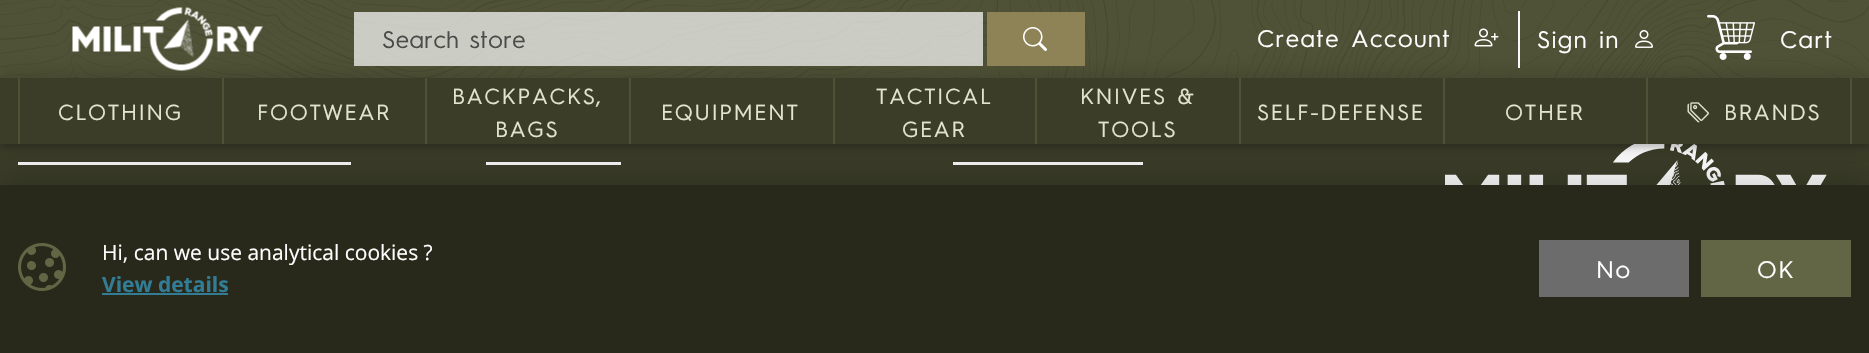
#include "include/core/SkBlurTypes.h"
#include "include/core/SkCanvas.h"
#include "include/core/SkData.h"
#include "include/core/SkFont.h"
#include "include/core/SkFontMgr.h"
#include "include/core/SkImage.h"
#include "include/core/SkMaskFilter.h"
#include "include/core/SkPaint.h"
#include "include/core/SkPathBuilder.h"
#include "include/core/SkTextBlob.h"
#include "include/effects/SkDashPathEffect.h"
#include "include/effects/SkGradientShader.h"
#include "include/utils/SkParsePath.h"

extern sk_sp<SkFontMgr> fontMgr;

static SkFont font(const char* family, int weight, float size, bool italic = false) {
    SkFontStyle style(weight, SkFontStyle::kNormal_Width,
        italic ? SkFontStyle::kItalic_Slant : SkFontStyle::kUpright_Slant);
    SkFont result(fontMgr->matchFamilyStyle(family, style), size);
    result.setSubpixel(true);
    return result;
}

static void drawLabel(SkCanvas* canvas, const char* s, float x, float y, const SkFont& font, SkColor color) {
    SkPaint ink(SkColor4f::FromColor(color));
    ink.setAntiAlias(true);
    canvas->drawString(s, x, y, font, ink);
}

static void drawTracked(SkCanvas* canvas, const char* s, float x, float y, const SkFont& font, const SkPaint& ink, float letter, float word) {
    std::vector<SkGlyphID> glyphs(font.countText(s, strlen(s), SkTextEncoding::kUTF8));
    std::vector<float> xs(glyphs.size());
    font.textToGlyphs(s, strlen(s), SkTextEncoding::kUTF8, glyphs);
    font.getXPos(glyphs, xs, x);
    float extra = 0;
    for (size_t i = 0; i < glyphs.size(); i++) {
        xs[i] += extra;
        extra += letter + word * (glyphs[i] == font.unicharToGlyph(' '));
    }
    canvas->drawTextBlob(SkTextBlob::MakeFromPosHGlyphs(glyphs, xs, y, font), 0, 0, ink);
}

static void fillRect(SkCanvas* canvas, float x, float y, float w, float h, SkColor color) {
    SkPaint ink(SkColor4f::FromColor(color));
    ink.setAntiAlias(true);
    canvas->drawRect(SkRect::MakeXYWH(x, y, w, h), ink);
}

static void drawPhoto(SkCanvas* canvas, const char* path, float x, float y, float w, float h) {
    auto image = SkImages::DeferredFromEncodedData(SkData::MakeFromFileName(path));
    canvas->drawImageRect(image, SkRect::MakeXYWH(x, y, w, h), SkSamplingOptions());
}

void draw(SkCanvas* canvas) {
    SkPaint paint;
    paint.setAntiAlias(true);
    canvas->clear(0xFF3B3D29);
    drawPhoto(canvas, "assets/img8.png", 1445, 144, 382, 41);
    paint.setColor(0x2E000000);
    paint.setMaskFilter(SkMaskFilter::MakeBlur(kNormal_SkBlurStyle, 3));
    canvas->drawRect(SkRect::MakeXYWH(0, 3, 1869, 144), paint);
    paint.setMaskFilter(nullptr);
    fillRect(canvas, 0, 0, 1869, 78, 0xFF4F5236);
    drawPhoto(canvas, "assets/img1.png", 0, 0, 1869, 78);
    drawPhoto(canvas, "assets/img5.png", 1635, 30, 18, 18);
    fillRect(canvas, 18, 162, 333, 3, 0xFFF8F8F8);
    fillRect(canvas, 486, 162, 135, 3, 0xFFF8F8F8);
    fillRect(canvas, 953, 162, 190, 3, 0xFFF8F8F8);
    paint.setColor(0x33000000);
    paint.setMaskFilter(SkMaskFilter::MakeBlur(kNormal_SkBlurStyle, 12));
    canvas->drawRect(SkRect::MakeXYWH(0, 78, 1869, 66), paint);
    paint.setMaskFilter(nullptr);
    drawPhoto(canvas, "assets/img2.png", 72, 7, 191, 64);
    fillRect(canvas, 354, 12, 629, 54, 0xB3FFFFFF);
    SkFont font1 = font("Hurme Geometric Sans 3", 400, 24);
    paint.setColor(0xFF4B4B49);
    drawTracked(canvas, "Search store", 382, 48, font1, paint, 0.5f, 0);
    fillRect(canvas, 987, 12, 98, 54, 0xFF8D8356);
    drawPhoto(canvas, "assets/img3.png", 1023, 27, 24, 24);
    fillRect(canvas, 1518, 11, 2, 57, 0xFFF8F8F8);
    paint.setColor(0xFFFFFFFF);
    drawTracked(canvas, "Create Account", 1257, 47, font1, paint, 1.5f, 0);
    drawPhoto(canvas, "assets/img4.png", 1474, 28, 25, 19);
    drawTracked(canvas, "Sign in", 1537, 48, font1, paint, 1.5f, 0);
    drawPhoto(canvas, "assets/img6.png", 1707, 14, 48, 46);
    drawTracked(canvas, "Cart", 1780, 48, font1, paint, 1.5f, 0);
    fillRect(canvas, 0, 78, 1869, 66, 0xFF3B3D29);
    fillRect(canvas, 18, 78, 2, 66, 0xFF4F5236);
    SkFont font2 = font("Hurme Geometric Sans 3", 400, 22);
    paint.setColor(0xFFE3E3D2);
    drawTracked(canvas, "CLOTHING", 58, 120, font2, paint, 1.75f, 0);
    fillRect(canvas, 222, 78, 2, 66, 0xFF4F5236);
    drawTracked(canvas, "FOOTWEAR", 257, 120, font2, paint, 1.75f, 0);
    fillRect(canvas, 425, 78, 2, 66, 0xFF4F5236);
    drawTracked(canvas, "BACKPACKS,", 452, 104, font2, paint, 1.75f, 0);
    drawTracked(canvas, "BAGS", 495, 137, font2, paint, 1.75f, 0);
    fillRect(canvas, 629, 78, 2, 66, 0xFF4F5236);
    drawTracked(canvas, "EQUIPMENT", 661, 120, font2, paint, 1.75f, 0);
    fillRect(canvas, 833, 78, 2, 66, 0xFF4F5236);
    drawTracked(canvas, "TACTICAL", 876, 104, font2, paint, 1.75f, 0);
    drawTracked(canvas, "GEAR", 902, 137, font2, paint, 1.75f, 0);
    fillRect(canvas, 1035, 78, 2, 66, 0xFF4F5236);
    drawTracked(canvas, "KNIVES &", 1080, 104, font2, paint, 1.75f, 0);
    drawTracked(canvas, "TOOLS", 1098, 137, font2, paint, 1.75f, 0);
    fillRect(canvas, 1239, 78, 2, 66, 0xFF4F5236);
    drawTracked(canvas, "SELF-DEFENSE", 1257, 120, font2, paint, 1.75f, 0);
    fillRect(canvas, 1443, 78, 2, 66, 0xFF4F5236);
    drawTracked(canvas, "OTHER", 1505, 120, font2, paint, 1.75f, 0);
    fillRect(canvas, 1850, 78, 2, 66, 0xFF4F5236);
    fillRect(canvas, 1646, 78, 2, 66, 0xFF4F5236);
    drawPhoto(canvas, "assets/img7.png", 1687, 102, 22, 21);
    drawTracked(canvas, "BRANDS", 1724, 120, font2, paint, 1.75f, 0);
    paint.setColor(0x26000000);
    paint.setMaskFilter(SkMaskFilter::MakeBlur(kNormal_SkBlurStyle, 12));
    canvas->drawRect(SkRect::MakeXYWH(0, 173, 1869, 169), paint);
    paint.setMaskFilter(nullptr);
    fillRect(canvas, 0, 185, 1869, 168, 0xFF28291B);
    drawPhoto(canvas, "assets/img9.png", 18, 243, 48, 48);
    SkFont font3 = font("Open Sans", 400, 21);
    drawLabel(canvas, "Hi, can we use analytical cookies ?", 102, 260, font3, 0xFFFFFFFF);
    SkFont font4 = font("Open Sans", 700, 21);
    drawLabel(canvas, "View details", 102, 292, font4, 0xFF327C95);
    fillRect(canvas, 102, 293, 126, 2, 0xFF327C95);
    fillRect(canvas, 1539, 240, 150, 57, 0xFF6C6C6C);
    paint.setColor(0xFFFFFFFF);
    drawTracked(canvas, "No", 1596, 278, font1, paint, 1.5f, 0);
    fillRect(canvas, 1701, 240, 150, 57, 0xFF636644);
    drawTracked(canvas, "OK", 1757, 278, font1, paint, 1.5f, 0);
}
